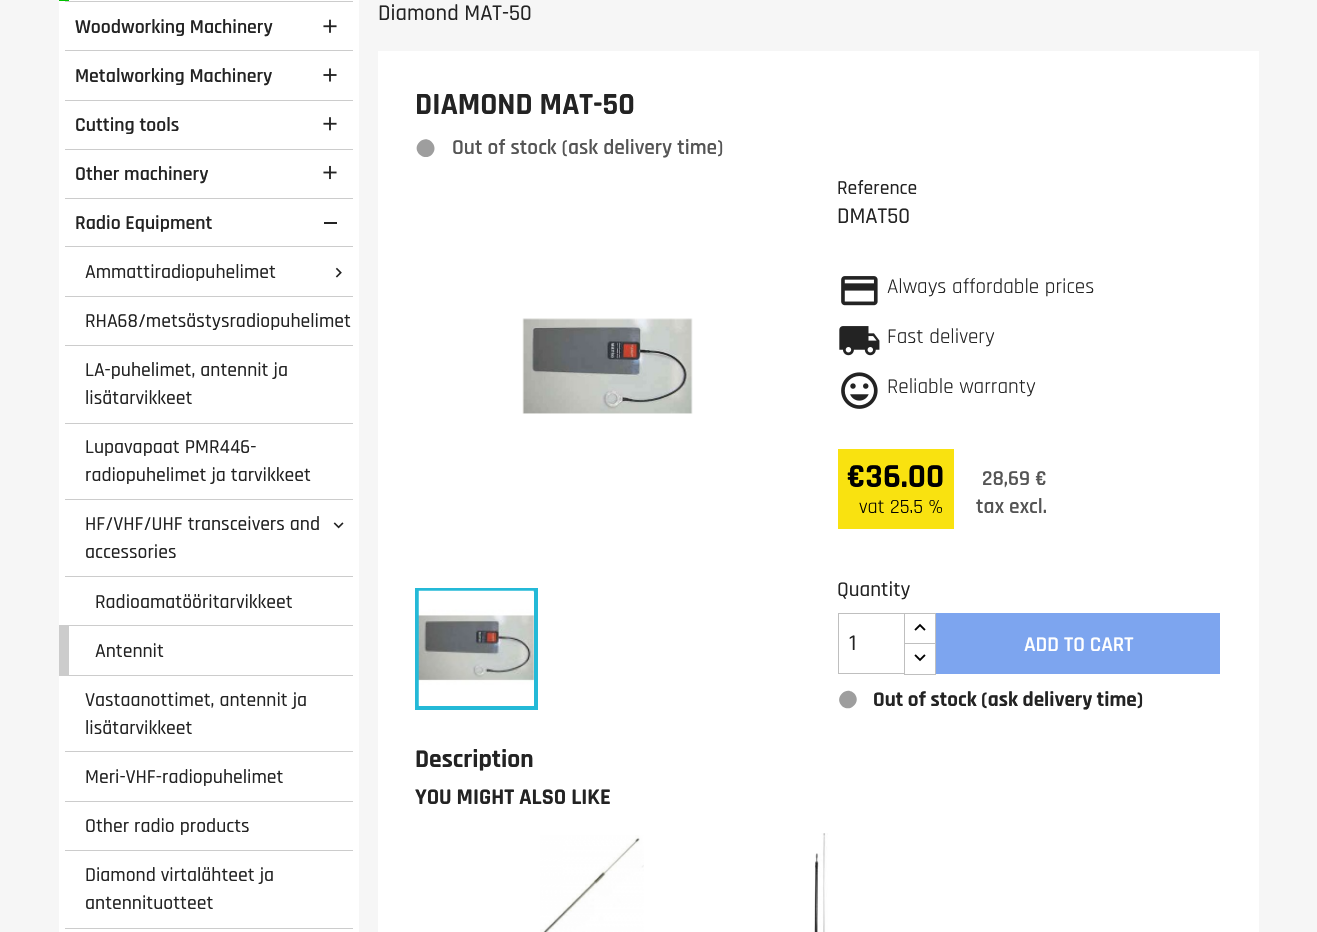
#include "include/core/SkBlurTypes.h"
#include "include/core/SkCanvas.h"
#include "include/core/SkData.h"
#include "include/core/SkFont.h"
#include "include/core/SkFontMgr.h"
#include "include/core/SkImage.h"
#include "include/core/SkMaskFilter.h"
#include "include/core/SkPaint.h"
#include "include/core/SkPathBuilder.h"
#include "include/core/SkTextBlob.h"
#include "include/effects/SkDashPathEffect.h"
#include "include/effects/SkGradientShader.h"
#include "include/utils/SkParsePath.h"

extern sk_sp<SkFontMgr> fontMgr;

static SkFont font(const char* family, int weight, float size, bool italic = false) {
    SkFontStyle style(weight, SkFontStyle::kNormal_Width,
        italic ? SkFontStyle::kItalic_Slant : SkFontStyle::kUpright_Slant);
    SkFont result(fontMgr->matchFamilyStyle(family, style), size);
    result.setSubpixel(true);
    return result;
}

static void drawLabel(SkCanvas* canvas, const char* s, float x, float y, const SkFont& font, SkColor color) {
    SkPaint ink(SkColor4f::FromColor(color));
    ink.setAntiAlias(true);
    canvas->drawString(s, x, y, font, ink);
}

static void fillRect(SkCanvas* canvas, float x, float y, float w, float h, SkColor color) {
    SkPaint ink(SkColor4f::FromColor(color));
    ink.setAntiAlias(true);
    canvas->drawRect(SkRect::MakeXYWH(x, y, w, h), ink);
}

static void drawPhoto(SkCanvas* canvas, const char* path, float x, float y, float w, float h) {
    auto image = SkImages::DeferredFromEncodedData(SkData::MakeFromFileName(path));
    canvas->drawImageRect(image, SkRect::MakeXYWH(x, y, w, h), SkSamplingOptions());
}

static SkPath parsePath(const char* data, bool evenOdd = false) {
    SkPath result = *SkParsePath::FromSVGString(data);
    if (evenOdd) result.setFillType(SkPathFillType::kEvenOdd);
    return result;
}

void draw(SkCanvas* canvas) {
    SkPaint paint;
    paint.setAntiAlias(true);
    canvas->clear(0xFFF6F6F6);
    fillRect(canvas, 59, 0, 300, 932, 0xFFFFFFFF);
    SkFont font1 = font("Rajdhani", 500, 22.5f);
    drawLabel(canvas, "Diamond MAT-50", 378, 20, font1, 0xFF232323);
    fillRect(canvas, 378, 51, 881, 881, 0xFFFFFFFF);
    SkFont font2 = font("Rajdhani", 700, 31);
    drawLabel(canvas, "DIAMOND MAT-50", 415, 114, font2, 0xFF232323);
    paint.setColor(0xFF9E9E9E);
    canvas->drawPath(parsePath("M419.5 142C427.5 133.5 440 146 432 154.5C423.5 162.5 411 150 419.5 142Z"), paint);
    SkFont font3 = font("Rajdhani", 600, 21.4f);
    drawLabel(canvas, "Out of stock (ask delivery time)", 452, 154, font3, 0xFF555555);
    drawPhoto(canvas, "assets/img1.png", 522, 318, 171, 96);
    paint.setStroke(true);
    paint.setStrokeWidth(4);
    paint.setColor(0xFF24B9D7);
    canvas->drawRect(SkRect::MakeXYWH(417, 590, 119, 118), paint);
    drawPhoto(canvas, "assets/img2.png", 418, 590, 116, 116);
    SkFont font4 = font("Rajdhani", 500, 19.75f);
    drawLabel(canvas, "Reference", 837, 194, font4, 0xFF232323);
    drawLabel(canvas, "DMAT50", 837, 223, font1, 0xFF232323);
    drawPhoto(canvas, "assets/img3.png", 841, 276, 37, 30);
    SkFont font5 = font("Rajdhani", 400, 21.1f);
    drawLabel(canvas, "Always affordable prices", 887, 293, font5, 0xFF232323);
    drawPhoto(canvas, "assets/img4.png", 839, 326, 41, 30);
    drawLabel(canvas, "Fast delivery", 887, 343, font5, 0xFF232323);
    drawPhoto(canvas, "assets/img5.png", 841, 372, 37, 37);
    drawLabel(canvas, "Reliable warranty", 887, 393, font5, 0xFF232323);
    fillRect(canvas, 838, 449, 116, 80, 0xFFF9E210);
    SkFont font6 = font("Rajdhani", 700, 34);
    drawLabel(canvas, "€36.00", 847, 487, font6, 0xFF000000);
    SkFont font7 = font("Rajdhani", 400, 20.25f);
    drawLabel(canvas, "vat 25.5 %", 859, 513, font7, 0xFF000000);
    drawLabel(canvas, "28,69 €", 982, 485, font3, 0xFF555555);
    drawLabel(canvas, "tax excl.", 976, 513, font3, 0xFF555555);
    SkFont font8 = font("Rajdhani", 500, 21.1f);
    drawLabel(canvas, "Quantity", 837, 596, font8, 0xFF232323);
    paint.setStrokeWidth(1);
    paint.setColor(0xFFBFBFBF);
    canvas->drawRect(SkRect::MakeXYWH(904.5f, 613.5f, 31, 31), paint);
    fillRect(canvas, 905, 644, 30, 1, 0xFFFFFFFF);
    canvas->drawRect(SkRect::MakeXYWH(904.5f, 643.5f, 31, 31), paint);
    canvas->drawRect(SkRect::MakeXYWH(838.5f, 613.5f, 66, 60), paint);
    drawLabel(canvas, "1", 849, 650, font1, 0xFF232323);
    drawPhoto(canvas, "assets/img6.png", 914, 623, 12, 8);
    drawPhoto(canvas, "assets/img7.png", 914, 654, 12, 8);
    fillRect(canvas, 936, 613, 284, 61, 0xFF7DA5EF);
    SkFont font9 = font("Rajdhani", 600, 21.1f);
    drawLabel(canvas, "ADD TO CART", 1024, 651, font9, 0xFFFFFFFF);
    SkFont font10 = font("Rajdhani", 700, 21.1f);
    drawLabel(canvas, "Out of stock (ask delivery time)", 873, 706, font10, 0xFF232323);
    paint.setStroke(false);
    paint.setColor(0xFF9E9E9E);
    canvas->drawPath(parsePath("M842 693.5C850 685 862.5 697.5 854 705.5C846 714 833.5 701.5 842 693.5Z"), paint);
    SkFont font11 = font("Rajdhani", 700, 25.5f);
    drawLabel(canvas, "Description", 415, 767, font11, 0xFF232323);
    SkFont font12 = font("Rajdhani", 700, 22.5f);
    drawLabel(canvas, "YOU MIGHT ALSO LIKE", 415, 804, font12, 0xFF232323);
    drawPhoto(canvas, "assets/img8.png", 540, 835, 104, 97);
    drawPhoto(canvas, "assets/img9.png", 814, 833, 14, 99);
    fillRect(canvas, 59, 0, 10, 1, 0xFF00C100);
    fillRect(canvas, 65, 1, 288, 1, 0xFFCCCCCC);
    SkFont font13 = font("Rajdhani", 600, 19.75f);
    drawLabel(canvas, "Woodworking Machinery", 75, 33, font13, 0xFF232323);
    drawPhoto(canvas, "assets/img10.png", 323, 19, 14, 14);
    fillRect(canvas, 65, 50, 288, 1, 0xFFCCCCCC);
    drawLabel(canvas, "Metalworking Machinery", 75, 82, font13, 0xFF232323);
    drawPhoto(canvas, "assets/img11.png", 323, 68, 14, 14);
    fillRect(canvas, 65, 100, 288, 1, 0xFFCCCCCC);
    drawLabel(canvas, "Cutting tools", 75, 131, font13, 0xFF232323);
    drawPhoto(canvas, "assets/img12.png", 323, 117, 14, 14);
    fillRect(canvas, 65, 149, 288, 1, 0xFFCCCCCC);
    drawLabel(canvas, "Other machinery", 75, 180, font13, 0xFF232323);
    drawPhoto(canvas, "assets/img13.png", 323, 165, 14, 15);
    fillRect(canvas, 65, 198, 288, 1, 0xFFCCCCCC);
    drawLabel(canvas, "Radio Equipment", 75, 229, font13, 0xFF232323);
    fillRect(canvas, 324, 222, 13, 2, 0xFF232323);
    fillRect(canvas, 65, 246, 288, 1, 0xFFCCCCCC);
    drawLabel(canvas, "Ammattiradiopuhelimet", 85, 278, font4, 0xFF232323);
    drawPhoto(canvas, "assets/img14.png", 335, 267, 7, 11);
    fillRect(canvas, 65, 296, 288, 1, 0xFFCCCCCC);
    drawLabel(canvas, "RHA68/metsästysradiopuhelimet", 85, 327, font4, 0xFF232323);
    fillRect(canvas, 65, 345, 288, 1, 0xFFCCCCCC);
    drawLabel(canvas, "LA-puhelimet, antennit ja", 85, 376, font4, 0xFF232323);
    drawLabel(canvas, "lisätarvikkeet", 85, 404, font4, 0xFF232323);
    fillRect(canvas, 65, 423, 288, 1, 0xFFCCCCCC);
    drawLabel(canvas, "Lupavapaat PMR446-", 85, 453, font4, 0xFF232323);
    drawLabel(canvas, "radiopuhelimet ja tarvikkeet", 85, 481, font4, 0xFF232323);
    fillRect(canvas, 65, 499, 288, 1, 0xFFCCCCCC);
    drawLabel(canvas, "HF/VHF/UHF transceivers and", 85, 530, font4, 0xFF232323);
    drawLabel(canvas, "accessories", 85, 558, font4, 0xFF232323);
    drawPhoto(canvas, "assets/img15.png", 333, 522, 11, 7);
    fillRect(canvas, 65, 576, 288, 1, 0xFFCCCCCC);
    drawLabel(canvas, "Radioamatööritarvikkeet", 95, 608, font4, 0xFF232323);
    fillRect(canvas, 65, 625, 288, 1, 0xFFCCCCCC);
    fillRect(canvas, 65, 675, 288, 1, 0xFFCCCCCC);
    fillRect(canvas, 59, 625, 10, 51, 0xFFCCCCCC);
    drawLabel(canvas, "Antennit", 95, 657, font4, 0xFF232323);
    drawLabel(canvas, "Vastaanottimet, antennit ja", 85, 706, font4, 0xFF232323);
    drawLabel(canvas, "lisätarvikkeet", 85, 734, font4, 0xFF232323);
    fillRect(canvas, 65, 751, 288, 1, 0xFFCCCCCC);
    drawLabel(canvas, "Meri-VHF-radiopuhelimet", 85, 783, font4, 0xFF232323);
    fillRect(canvas, 65, 801, 288, 1, 0xFFCCCCCC);
    drawLabel(canvas, "Other radio products", 85, 832, font4, 0xFF232323);
    fillRect(canvas, 65, 850, 288, 1, 0xFFCCCCCC);
    drawLabel(canvas, "Diamond virtalähteet ja", 85, 881, font4, 0xFF232323);
    drawLabel(canvas, "antennituotteet", 85, 909, font4, 0xFF232323);
    fillRect(canvas, 65, 928, 288, 1, 0xFFCCCCCC);
}
